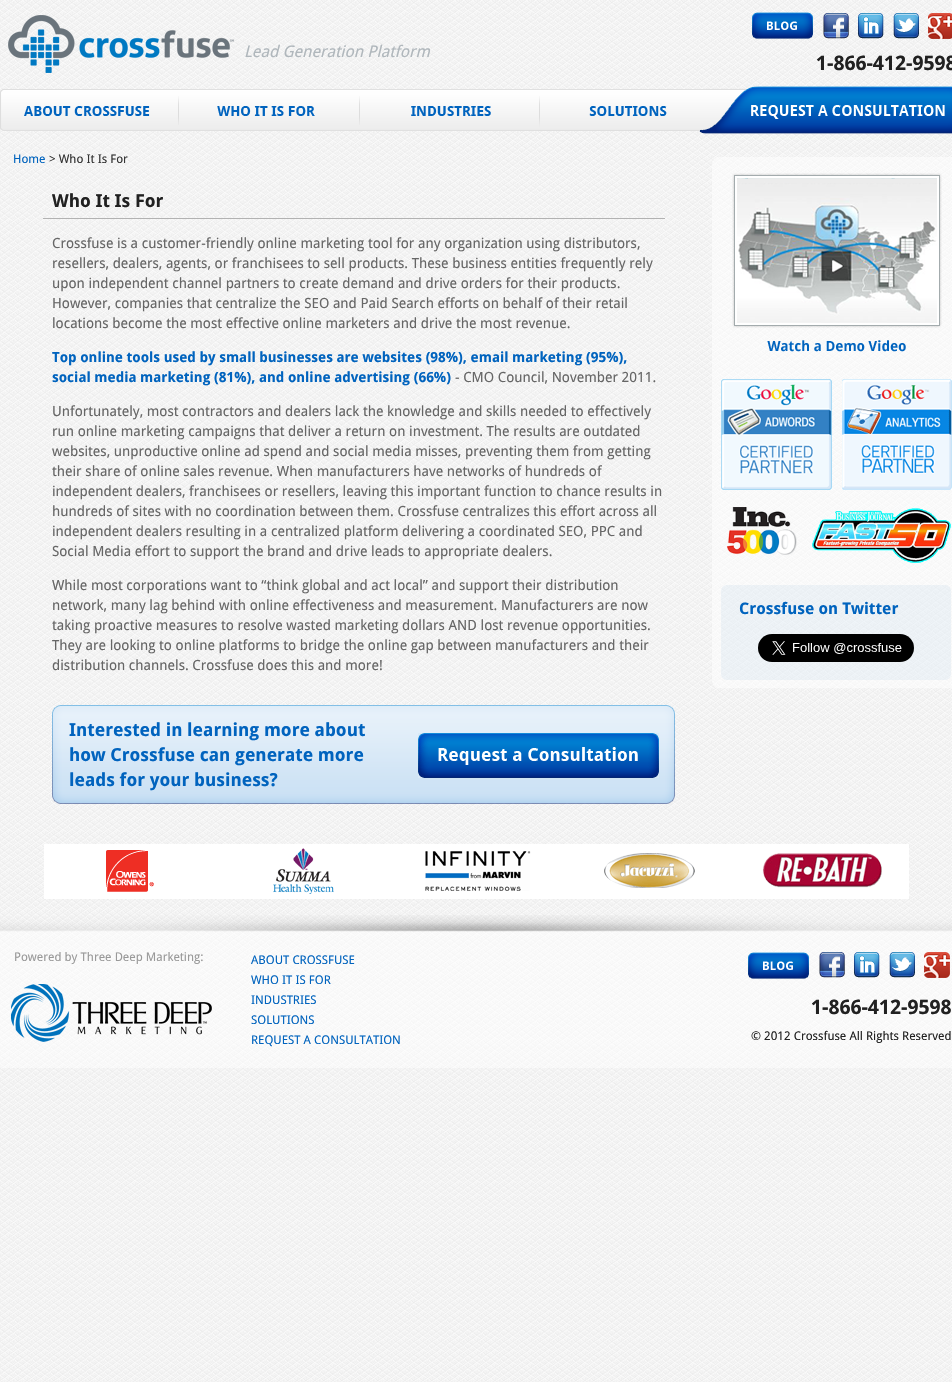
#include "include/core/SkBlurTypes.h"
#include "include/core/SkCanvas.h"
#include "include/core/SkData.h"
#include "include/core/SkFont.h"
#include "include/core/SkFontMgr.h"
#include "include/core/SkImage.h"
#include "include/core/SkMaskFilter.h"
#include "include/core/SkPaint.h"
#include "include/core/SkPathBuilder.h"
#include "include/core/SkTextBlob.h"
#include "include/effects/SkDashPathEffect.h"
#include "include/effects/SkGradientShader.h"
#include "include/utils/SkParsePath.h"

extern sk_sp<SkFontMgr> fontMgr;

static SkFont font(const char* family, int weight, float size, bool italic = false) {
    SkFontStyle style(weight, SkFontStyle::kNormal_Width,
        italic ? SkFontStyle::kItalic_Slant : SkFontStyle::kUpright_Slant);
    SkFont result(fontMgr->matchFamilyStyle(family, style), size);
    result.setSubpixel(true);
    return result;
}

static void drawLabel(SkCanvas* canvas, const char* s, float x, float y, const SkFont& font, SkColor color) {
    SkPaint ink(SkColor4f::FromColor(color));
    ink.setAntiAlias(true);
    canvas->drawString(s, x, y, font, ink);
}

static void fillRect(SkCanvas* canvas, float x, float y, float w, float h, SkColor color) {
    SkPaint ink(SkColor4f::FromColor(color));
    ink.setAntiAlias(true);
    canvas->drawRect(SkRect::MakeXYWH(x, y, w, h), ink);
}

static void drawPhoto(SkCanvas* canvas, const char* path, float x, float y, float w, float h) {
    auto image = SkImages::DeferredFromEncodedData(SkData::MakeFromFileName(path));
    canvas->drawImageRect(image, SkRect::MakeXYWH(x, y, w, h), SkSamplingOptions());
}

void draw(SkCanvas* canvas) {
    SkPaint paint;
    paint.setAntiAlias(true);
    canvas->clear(0xFFFFFFFF);
    drawPhoto(canvas, "assets/img1.png", 0, 0, 952, 1382);
    drawPhoto(canvas, "assets/img2.png", 8, 15, 226, 58);
    SkFont font1 = font("Droid Sans", 400, 16, true);
    drawLabel(canvas, "Lead Generation Platform", 244, 57, font1, 0xFFB0B7BC);
    drawPhoto(canvas, "assets/img3.png", 752, 12, 61, 27);
    drawPhoto(canvas, "assets/img4.png", 823, 13, 26, 26);
    drawPhoto(canvas, "assets/img5.png", 858, 13, 26, 26);
    drawPhoto(canvas, "assets/img6.png", 893, 13, 26, 26);
    drawPhoto(canvas, "assets/img7.png", 928, 13, 24, 26);
    SkFont font2 = font("Droid Sans", 700, 20);
    drawLabel(canvas, "1-866-412-9598", 816, 70, font2, 0xFF212121);
    drawPhoto(canvas, "assets/img8.png", 0, 89, 747, 42);
    drawPhoto(canvas, "assets/img9.png", 0, 89, 150, 40);
    drawPhoto(canvas, "assets/img10.png", 178, 96, 137, 29);
    drawPhoto(canvas, "assets/img11.png", 359, 96, 132, 29);
    drawPhoto(canvas, "assets/img12.png", 539, 96, 167, 38);
    drawPhoto(canvas, "assets/img13.png", 706, 86, 246, 48);
    SkFont font3 = font("Droid Sans", 400, 12);
    drawLabel(canvas, "Home", 13, 163, font3, 0xFF0063BE);
    drawLabel(canvas, "> Who It Is For", 49, 163, font3, 0xFF333333);
    fillRect(canvas, 43, 218, 622, 1, 0xFFB2B2B2);
    SkFont font4 = font("Droid Sans", 700, 18);
    drawLabel(canvas, "Who It Is For", 52, 207, font4, 0xFF212121);
    SkFont font5 = font("Droid Sans", 400, 14);
    drawLabel(canvas, "Crossfuse is a customer-friendly online marketing tool for any organization using distributors,", 52, 248, font5, 0xFF666666);
    drawLabel(canvas, "resellers, dealers, agents, or franchisees to sell products. These business entities frequently rely", 52, 268, font5, 0xFF666666);
    drawLabel(canvas, "upon independent channel partners to create demand and drive orders for their products.", 52, 288, font5, 0xFF666666);
    drawLabel(canvas, "However, companies that centralize the SEO and Paid Search efforts on behalf of their retail", 52, 308, font5, 0xFF666666);
    drawLabel(canvas, "locations become the most effective online marketers and drive the most revenue.", 52, 328, font5, 0xFF666666);
    SkFont font6 = font("Droid Sans", 700, 14);
    drawLabel(canvas, "Top online tools used by small businesses are websites (98%), email marketing (95%),", 52, 362, font6, 0xFF0063BE);
    drawLabel(canvas, "social media marketing (81%), and online advertising (66%)", 52, 382, font6, 0xFF0063BE);
    drawLabel(canvas, "- CMO Council, November 2011.", 455, 382, font5, 0xFF666666);
    drawLabel(canvas, "Unfortunately, most contractors and dealers lack the knowledge and skills needed to effectively", 52, 416, font5, 0xFF666666);
    drawLabel(canvas, "run online marketing campaigns that deliver a return on investment. The results are outdated", 52, 436, font5, 0xFF666666);
    drawLabel(canvas, "websites, unproductive online ad spend and social media misses, preventing them from getting", 52, 456, font5, 0xFF666666);
    drawLabel(canvas, "their share of online sales revenue. When manufacturers have networks of hundreds of", 52, 476, font5, 0xFF666666);
    drawLabel(canvas, "independent dealers, franchisees or resellers, leaving this important function to chance results in", 52, 496, font5, 0xFF666666);
    drawLabel(canvas, "hundreds of sites with no coordination between them. Crossfuse centralizes this effort across all", 52, 516, font5, 0xFF666666);
    drawLabel(canvas, "independent dealers resulting in a centralized platform delivering a coordinated SEO, PPC and", 52, 536, font5, 0xFF666666);
    drawLabel(canvas, "Social Media effort to support the brand and drive leads to appropriate dealers.", 52, 556, font5, 0xFF666666);
    drawLabel(canvas, "While most corporations want to “think global and act local” and support their distribution", 52, 590, font5, 0xFF666666);
    drawLabel(canvas, "network, many lag behind with online effectiveness and measurement. Manufacturers are now", 52, 610, font5, 0xFF666666);
    drawLabel(canvas, "taking proactive measures to resolve wasted marketing dollars AND lost revenue opportunities.", 52, 630, font5, 0xFF666666);
    drawLabel(canvas, "They are looking to online platforms to bridge the online gap between manufacturers and their", 52, 650, font5, 0xFF666666);
    drawLabel(canvas, "distribution channels. Crossfuse does this and more!", 52, 670, font5, 0xFF666666);
    drawPhoto(canvas, "assets/img14.png", 52, 705, 623, 87);
    drawLabel(canvas, "Interested in learning more about", 69, 736, font4, 0xFF0063BE);
    drawLabel(canvas, "how Crossfuse can generate more", 69, 761, font4, 0xFF0063BE);
    drawLabel(canvas, "leads for your business?", 69, 786, font4, 0xFF0063BE);
    drawPhoto(canvas, "assets/img15.png", 418, 733, 241, 45);
    drawPhoto(canvas, "assets/img16.png", 52, 792, 623, 12);
    drawPhoto(canvas, "assets/img17.png", 712, 157, 240, 9);
    fillRect(canvas, 712, 166, 240, 514, 0x80FFFFFF);
    drawPhoto(canvas, "assets/img18.png", 732, 173, 210, 179);
    drawPhoto(canvas, "assets/img19.png", 721, 379, 111, 111);
    drawPhoto(canvas, "assets/img20.png", 842, 379, 110, 111);
    drawPhoto(canvas, "assets/img21.png", 727, 507, 70, 48);
    drawPhoto(canvas, "assets/img22.png", 812, 508, 139, 55);
    drawPhoto(canvas, "assets/img23.png", 721, 585, 230, 5);
    fillRect(canvas, 721, 590, 230, 84, 0x0D0062B1);
    SkFont font7 = font("Droid Sans", 700, 16);
    drawLabel(canvas, "Crossfuse on Twitter", 739, 614, font7, 0xFF0063BE);
    drawPhoto(canvas, "assets/img24.png", 758, 634, 156, 28);
    drawPhoto(canvas, "assets/img25.png", 721, 674, 230, 6);
    drawPhoto(canvas, "assets/img26.png", 712, 680, 240, 8);
    fillRect(canvas, 44, 844, 865, 55, 0xFFFFFFFF);
    drawPhoto(canvas, "assets/img27.png", 106, 850, 48, 42);
    drawPhoto(canvas, "assets/img28.png", 273, 848, 61, 46);
    drawPhoto(canvas, "assets/img29.png", 425, 851, 106, 40);
    drawPhoto(canvas, "assets/img30.png", 604, 853, 91, 35);
    drawPhoto(canvas, "assets/img31.png", 762, 853, 120, 35);
    drawPhoto(canvas, "assets/img32.png", 0, 915, 952, 153);
    drawLabel(canvas, "Powered by Three Deep Marketing:", 14, 961, font3, 0xFF999999);
    drawLabel(canvas, "ABOUT CROSSFUSE", 251, 964, font3, 0xFF0063BE);
    drawLabel(canvas, "WHO IT IS FOR", 251, 984, font3, 0xFF0063BE);
    drawLabel(canvas, "INDUSTRIES", 251, 1004, font3, 0xFF0063BE);
    drawLabel(canvas, "SOLUTIONS", 251, 1024, font3, 0xFF0063BE);
    drawLabel(canvas, "REQUEST A CONSULTATION", 251, 1044, font3, 0xFF0063BE);
    drawPhoto(canvas, "assets/img33.png", 748, 952, 61, 27);
    drawPhoto(canvas, "assets/img34.png", 819, 952, 26, 26);
    drawPhoto(canvas, "assets/img35.png", 854, 952, 26, 26);
    drawPhoto(canvas, "assets/img36.png", 889, 952, 26, 26);
    drawPhoto(canvas, "assets/img37.png", 924, 952, 26, 26);
    drawPhoto(canvas, "assets/img38.png", 11, 984, 201, 58);
    drawLabel(canvas, "1-866-412-9598", 811, 1014, font2, 0xFF212121);
    drawLabel(canvas, "© 2012 Crossfuse All Rights Reserved", 751, 1040, font3, 0xFF212121);
}
